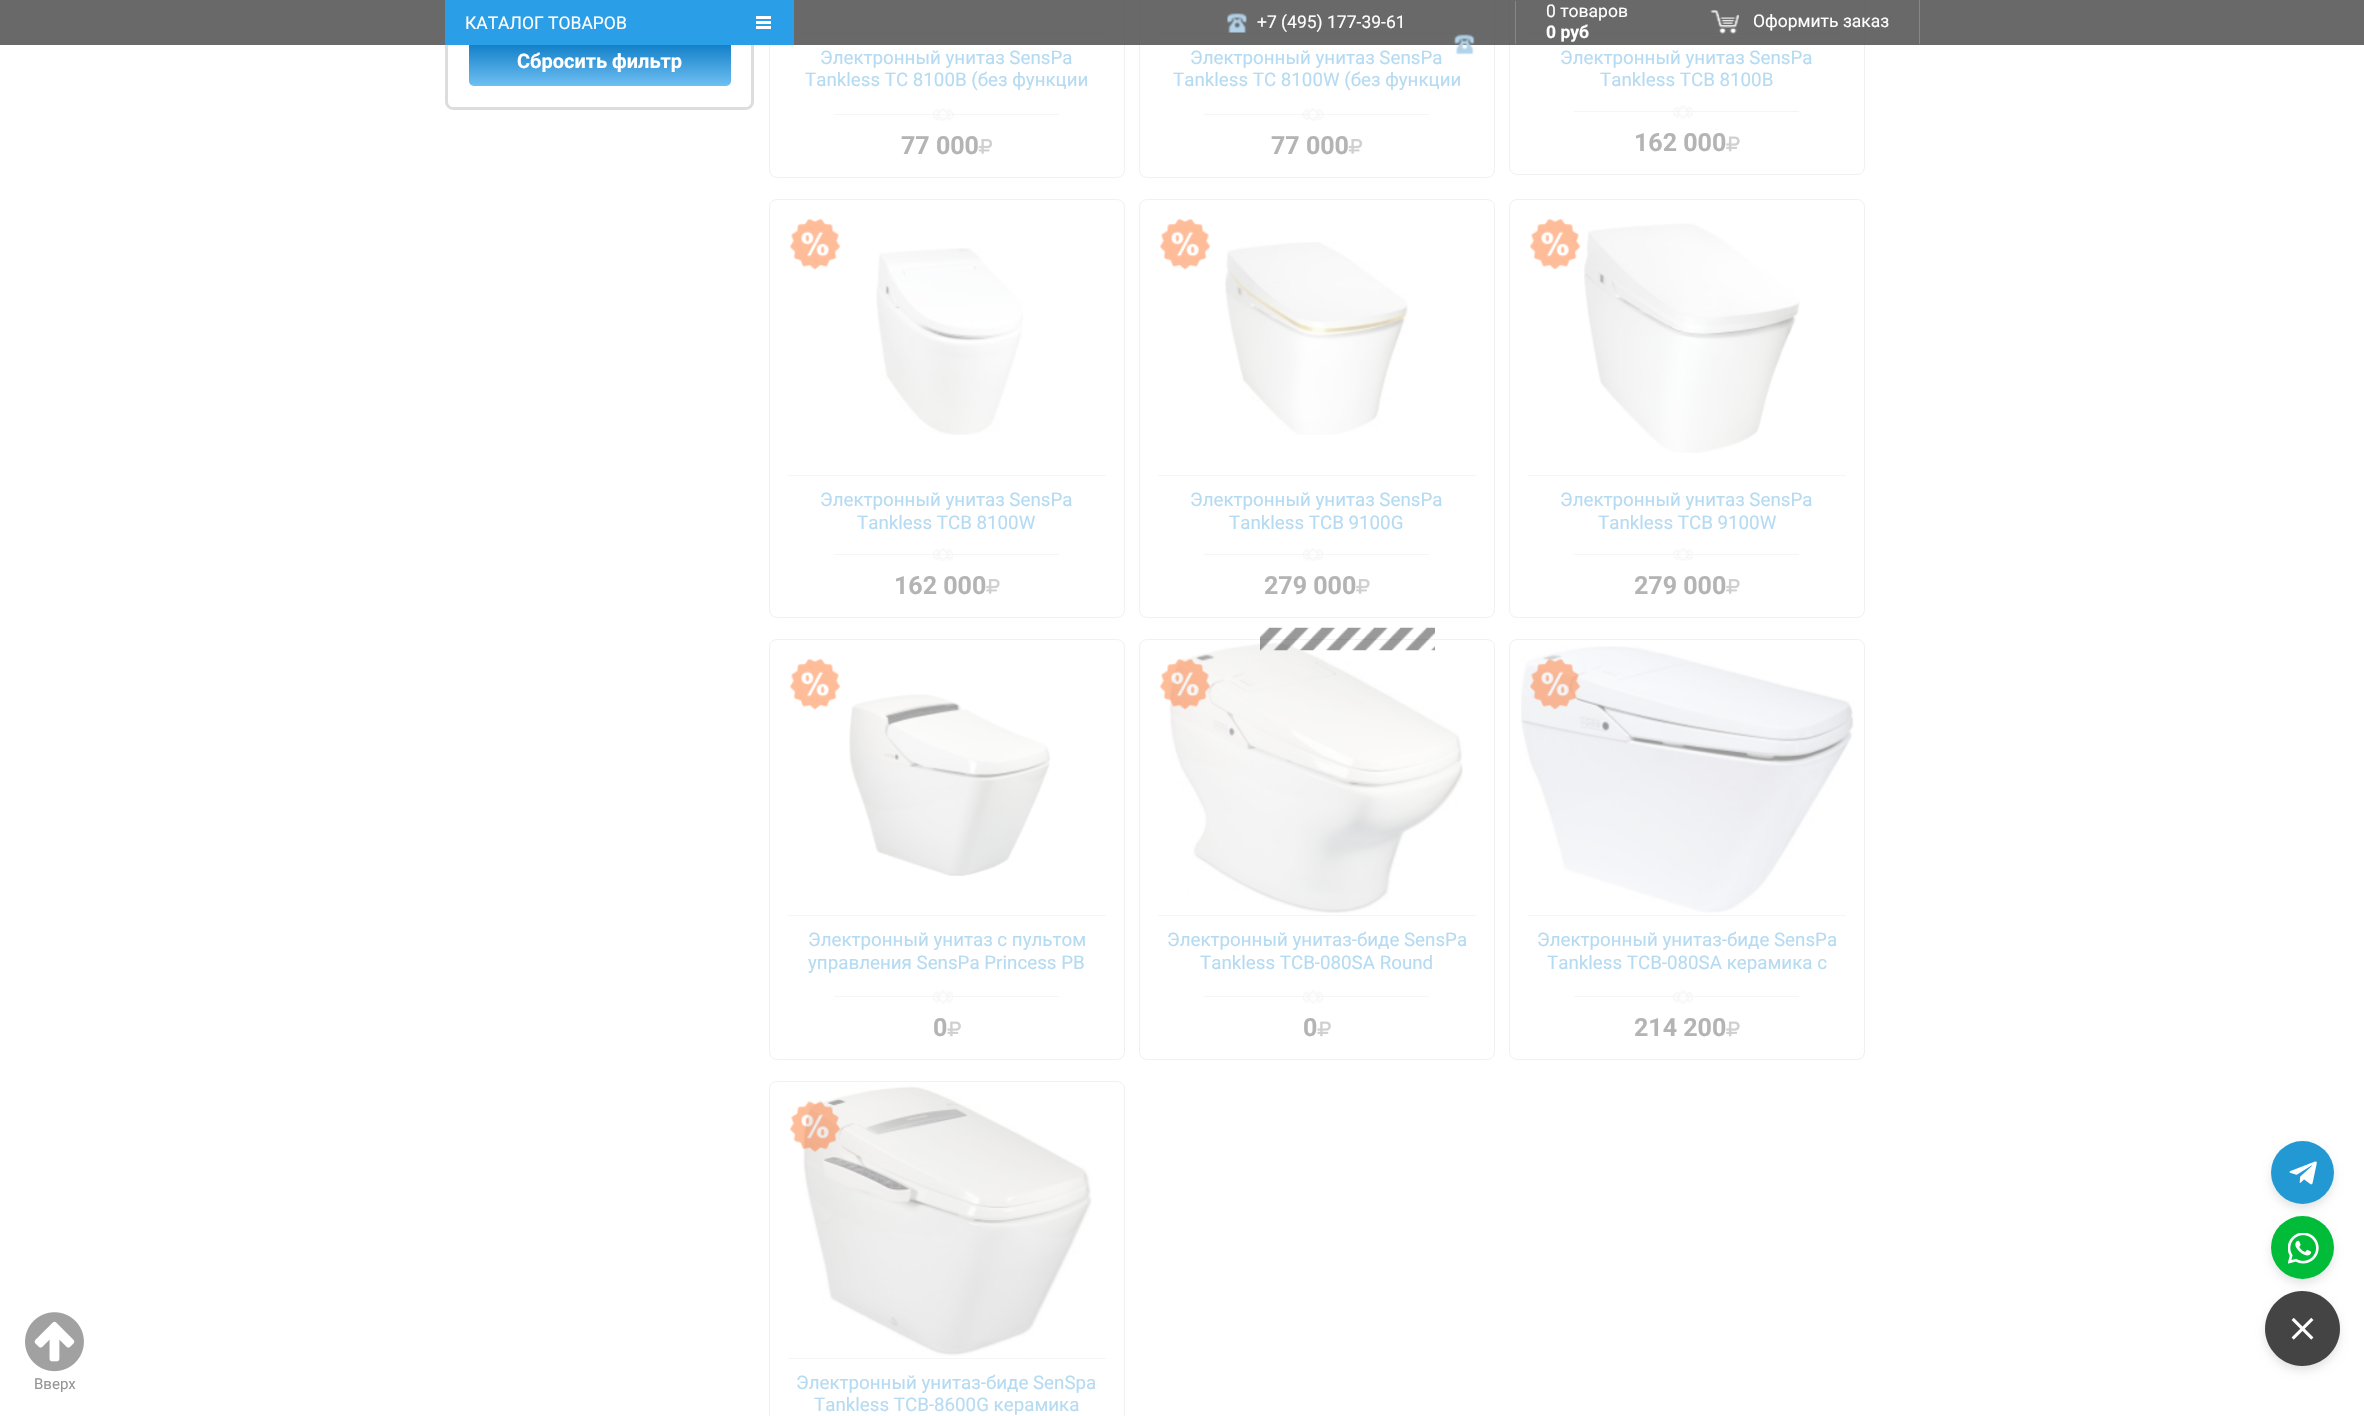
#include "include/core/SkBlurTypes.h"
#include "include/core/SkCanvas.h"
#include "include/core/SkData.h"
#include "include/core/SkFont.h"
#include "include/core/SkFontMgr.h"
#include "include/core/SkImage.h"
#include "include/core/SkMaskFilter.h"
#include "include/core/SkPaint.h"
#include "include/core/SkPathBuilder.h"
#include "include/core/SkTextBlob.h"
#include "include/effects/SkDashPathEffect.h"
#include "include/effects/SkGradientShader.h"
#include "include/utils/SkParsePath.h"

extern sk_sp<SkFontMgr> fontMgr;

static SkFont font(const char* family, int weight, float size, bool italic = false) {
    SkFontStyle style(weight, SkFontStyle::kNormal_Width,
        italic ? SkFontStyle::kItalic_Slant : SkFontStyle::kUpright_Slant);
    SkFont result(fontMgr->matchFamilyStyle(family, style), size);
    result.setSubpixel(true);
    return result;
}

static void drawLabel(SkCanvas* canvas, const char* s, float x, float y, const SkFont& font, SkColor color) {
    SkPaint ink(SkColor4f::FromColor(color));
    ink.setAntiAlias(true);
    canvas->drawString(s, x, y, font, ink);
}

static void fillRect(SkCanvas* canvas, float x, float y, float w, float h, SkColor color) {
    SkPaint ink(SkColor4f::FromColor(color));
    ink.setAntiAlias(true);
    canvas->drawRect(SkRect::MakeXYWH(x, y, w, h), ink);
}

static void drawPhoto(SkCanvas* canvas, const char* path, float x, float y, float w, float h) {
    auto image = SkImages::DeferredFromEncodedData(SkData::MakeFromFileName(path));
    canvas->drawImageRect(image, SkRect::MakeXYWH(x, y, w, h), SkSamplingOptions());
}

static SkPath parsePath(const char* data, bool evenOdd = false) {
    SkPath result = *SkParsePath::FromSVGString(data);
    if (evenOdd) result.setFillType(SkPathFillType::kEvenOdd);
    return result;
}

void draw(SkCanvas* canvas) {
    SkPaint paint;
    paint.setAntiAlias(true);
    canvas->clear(0xFFFFFFFF);
    paint.setStroke(true);
    paint.setStrokeWidth(3);
    paint.setColor(0xFFDDDDDD);
    canvas->drawPath(parsePath("M446.5-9.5H752.5V102C752.5 105.5 749.5 108.5 746 108.5H453C449.5 108.5 446.5 105.5 446.5 102Z"), paint);
    paint.setStroke(false);
    {
        const SkColor colors[] = {0xFF6FBFF1, 0xFF0476C1};
        const float stops[] = {0, 1};
        const SkPoint ends[] = {{600, 86}, {600, 38}};
        paint.setShader(SkGradientShader::MakeLinear(ends, colors, stops, 2, SkTileMode::kClamp));
        paint.setAlpha(255);
    }
    canvas->drawRoundRect(SkRect::MakeXYWH(469, 38, 262, 48), 5, 5, paint);
    paint.setStroke(true);
    paint.setStrokeWidth(1);
    paint.setShader(nullptr);
    paint.setColor(0xFFF1F1F1);
    canvas->drawRoundRect(SkRect::MakeXYWH(769.5f, -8.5f, 355, 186), 7.5f, 7.5f, paint);
    fillRect(canvas, 788, 33, 318, 1, 0xFFF5F5F5);
    canvas->drawRoundRect(SkRect::MakeXYWH(1139.5f, -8.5f, 355, 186), 7.5f, 7.5f, paint);
    fillRect(canvas, 1158, 33, 318, 1, 0xFFF5F5F5);
    canvas->drawRoundRect(SkRect::MakeXYWH(1509.5f, -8.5f, 355, 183), 7.5f, 7.5f, paint);
    fillRect(canvas, 1528, 33, 318, 1, 0xFFF5F5F5);
    fillRect(canvas, 0, 0, 2364, 45, 0xCC444444);
    fillRect(canvas, 445, 0, 349, 45, 0xFF2A9EE7);
    SkFont font1 = font("Roboto", 400, 17.5f);
    drawLabel(canvas, "КАТАЛОГ ТОВАРОВ", 465, 29, font1, 0xFFFFFFFF);
    fillRect(canvas, 756, 21, 15, 3, 0xFFFFFFFF);
    fillRect(canvas, 756, 16, 15, 3, 0xFFFFFFFF);
    fillRect(canvas, 756, 26, 15, 3, 0xFFFFFFFF);
    drawPhoto(canvas, "assets/img1.png", 1227, 13, 20, 20);
    drawLabel(canvas, "+7 (495) 177-39-61", 1257, 28, font1, 0xFFFFFFFF);
    fillRect(canvas, 1515, 1, 1, 43, 0xFF878787);
    drawLabel(canvas, "0 товаров", 1546, 17, font1, 0xFFFFFFFF);
    SkFont font2 = font("Roboto", 700, 17.5f);
    drawLabel(canvas, "0 руб", 1546, 38, font2, 0xFFFFFFFF);
    fillRect(canvas, 1919, 0, 1, 44, 0xFF878787);
    drawPhoto(canvas, "assets/img2.png", 1710, 10, 29, 24);
    drawLabel(canvas, "Оформить заказ", 1753, 27, font1, 0xFFFFFFFF);
    drawPhoto(canvas, "assets/img3.png", 1454, 34, 21, 21);
    SkFont font3 = font("Roboto", 700, 20);
    drawLabel(canvas, "Сбросить фильтр", 517, 68, font3, 0xFFFFFFFF);
    SkFont font4 = font("Roboto", 400, 18.75f);
    drawLabel(canvas, "Электронный унитаз SensPa", 820, 64, font4, 0xFFB5DBF2);
    drawLabel(canvas, "Tankless TC 8100B (без функции", 805, 86, font4, 0xFFB5DBF2);
    fillRect(canvas, 834, 114, 225, 1, 0xFFF5F5F5);
    drawPhoto(canvas, "assets/img4.png", 933, 108, 21, 13);
    SkFont font5 = font("Roboto", 700, 25);
    drawLabel(canvas, "77 000", 901, 154, font5, 0xFFB4B4B4);
    drawPhoto(canvas, "assets/img5.png", 978, 139, 15, 15);
    drawLabel(canvas, "Электронный унитаз SensPa", 1190, 64, font4, 0xFFB5DBF2);
    drawLabel(canvas, "Tankless TC 8100W (без функции", 1173, 86, font4, 0xFFB5DBF2);
    fillRect(canvas, 1204, 114, 225, 1, 0xFFF5F5F5);
    drawPhoto(canvas, "assets/img6.png", 1302, 108, 22, 13);
    drawLabel(canvas, "77 000", 1271, 154, font5, 0xFFB4B4B4);
    drawPhoto(canvas, "assets/img5.png", 1348, 139, 15, 15);
    drawLabel(canvas, "Электронный унитаз SensPa", 1560, 64, font4, 0xFFB5DBF2);
    drawLabel(canvas, "Tankless TCB 8100B", 1600, 86, font4, 0xFFB5DBF2);
    fillRect(canvas, 1574, 111, 225, 1, 0xFFF5F5F5);
    drawPhoto(canvas, "assets/img7.png", 1673, 105, 20, 14);
    drawLabel(canvas, "162 000", 1634, 151, font5, 0xFFB4B4B4);
    drawPhoto(canvas, "assets/img8.png", 1726, 136, 14, 16);
    canvas->drawRoundRect(SkRect::MakeXYWH(769.5f, 199.5f, 355, 418), 7.5f, 7.5f, paint);
    drawPhoto(canvas, "assets/img9.png", 790, 219, 51, 51);
    drawPhoto(canvas, "assets/img10.png", 876, 248, 147, 187);
    fillRect(canvas, 788, 475, 318, 1, 0xFFF5F5F5);
    drawLabel(canvas, "Электронный унитаз SensPa", 820, 506, font4, 0xFFB5DBF2);
    drawLabel(canvas, "Tankless TCB 8100W", 857, 529, font4, 0xFFB5DBF2);
    fillRect(canvas, 834, 554, 225, 1, 0xFFF5F5F5);
    drawPhoto(canvas, "assets/img11.png", 933, 548, 20, 13);
    drawLabel(canvas, "162 000", 894, 594, font5, 0xFFB4B4B4);
    drawPhoto(canvas, "assets/img12.png", 986, 579, 14, 15);
    canvas->drawRoundRect(SkRect::MakeXYWH(1139.5f, 199.5f, 355, 418), 7.5f, 7.5f, paint);
    drawPhoto(canvas, "assets/img9.png", 1160, 219, 51, 51);
    drawPhoto(canvas, "assets/img13.png", 1225, 242, 183, 193);
    fillRect(canvas, 1158, 475, 318, 1, 0xFFF5F5F5);
    drawLabel(canvas, "Электронный унитаз SensPa", 1190, 506, font4, 0xFFB5DBF2);
    drawLabel(canvas, "Tankless TCB 9100G", 1229, 529, font4, 0xFFB5DBF2);
    fillRect(canvas, 1204, 554, 225, 1, 0xFFF5F5F5);
    drawPhoto(canvas, "assets/img14.png", 1303, 548, 20, 13);
    drawLabel(canvas, "279 000", 1264, 594, font5, 0xFFB4B4B4);
    drawPhoto(canvas, "assets/img12.png", 1356, 579, 14, 15);
    canvas->drawRoundRect(SkRect::MakeXYWH(1509.5f, 199.5f, 355, 418), 7.5f, 7.5f, paint);
    drawPhoto(canvas, "assets/img15.png", 1530, 219, 51, 51);
    drawPhoto(canvas, "assets/img16.png", 1584, 223, 216, 230);
    fillRect(canvas, 1528, 475, 318, 1, 0xFFF5F5F5);
    drawLabel(canvas, "Электронный унитаз SensPa", 1560, 506, font4, 0xFFB5DBF2);
    drawLabel(canvas, "Tankless TCB 9100W", 1598, 529, font4, 0xFFB5DBF2);
    fillRect(canvas, 1574, 554, 225, 1, 0xFFF5F5F5);
    drawPhoto(canvas, "assets/img11.png", 1673, 548, 20, 13);
    drawLabel(canvas, "279 000", 1634, 594, font5, 0xFFB4B4B4);
    drawPhoto(canvas, "assets/img12.png", 1726, 579, 14, 15);
    canvas->drawRoundRect(SkRect::MakeXYWH(1139.5f, 639.5f, 355, 420), 7.5f, 7.5f, paint);
    drawPhoto(canvas, "assets/img20.png", 1169, 643, 294, 270);
    drawPhoto(canvas, "assets/img17.png", 1260, 627, 175, 24);
    canvas->drawRoundRect(SkRect::MakeXYWH(769.5f, 639.5f, 355, 420), 7.5f, 7.5f, paint);
    drawPhoto(canvas, "assets/img9.png", 790, 659, 51, 51);
    drawPhoto(canvas, "assets/img18.png", 849, 694, 202, 182);
    fillRect(canvas, 788, 915, 318, 1, 0xFFF5F5F5);
    drawLabel(canvas, "Электронный унитаз с пультом", 808, 946, font4, 0xFFB5DBF2);
    drawLabel(canvas, "управления SensPa Princess PB", 808, 969, font4, 0xFFB5DBF2);
    fillRect(canvas, 834, 996, 225, 1, 0xFFF5F5F5);
    drawPhoto(canvas, "assets/img7.png", 933, 990, 20, 14);
    drawLabel(canvas, "0", 933, 1036, font5, 0xFFB4B4B4);
    drawPhoto(canvas, "assets/img19.png", 947, 1021, 14, 16);
    drawPhoto(canvas, "assets/img21.png", 1160, 659, 51, 51);
    fillRect(canvas, 1158, 915, 318, 1, 0xFFF5F5F5);
    drawLabel(canvas, "Электронный унитаз-биде SensPa", 1167, 946, font4, 0xFFB5DBF2);
    drawLabel(canvas, "Tankless TCB-080SA Round", 1200, 969, font4, 0xFFB5DBF2);
    fillRect(canvas, 1204, 996, 225, 1, 0xFFF5F5F5);
    drawPhoto(canvas, "assets/img22.png", 1303, 990, 20, 14);
    drawLabel(canvas, "0", 1303, 1036, font5, 0xFFB4B4B4);
    drawPhoto(canvas, "assets/img19.png", 1317, 1021, 14, 16);
    canvas->drawRoundRect(SkRect::MakeXYWH(1509.5f, 639.5f, 355, 420), 7.5f, 7.5f, paint);
    drawPhoto(canvas, "assets/img23.png", 1521, 646, 333, 267);
    drawPhoto(canvas, "assets/img24.png", 1530, 659, 51, 51);
    fillRect(canvas, 1528, 915, 318, 1, 0xFFF5F5F5);
    drawLabel(canvas, "Электронный унитаз-биде SensPa", 1537, 946, font4, 0xFFB5DBF2);
    drawLabel(canvas, "Tankless TCB-080SA керамика с", 1547, 969, font4, 0xFFB5DBF2);
    fillRect(canvas, 1574, 996, 225, 1, 0xFFF5F5F5);
    drawPhoto(canvas, "assets/img7.png", 1673, 990, 20, 14);
    drawLabel(canvas, "214 200", 1634, 1036, font5, 0xFFB4B4B4);
    drawPhoto(canvas, "assets/img8.png", 1726, 1021, 14, 16);
    canvas->drawRoundRect(SkRect::MakeXYWH(769.5f, 1081.5f, 355, 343), 7.5f, 7.5f, paint);
    drawPhoto(canvas, "assets/img25.png", 803, 1086, 289, 270);
    drawPhoto(canvas, "assets/img26.png", 790, 1101, 51, 51);
    fillRect(canvas, 788, 1358, 318, 1, 0xFFF5F5F5);
    drawLabel(canvas, "Электронный унитаз-биде SenSpa", 796, 1389, font4, 0xFFB5DBF2);
    drawLabel(canvas, "Tankless TCB-8600G керамика", 814, 1411, font4, 0xFFB5DBF2);
    paint.setStroke(false);
    paint.setColor(0x1A000000);
    paint.setMaskFilter(SkMaskFilter::MakeBlur(kNormal_SkBlurStyle, 4));
    canvas->drawRoundRect(SkRect::MakeXYWH(2271, 1146, 63, 63), 31.5f, 31.5f, paint);
    paint.setMaskFilter(nullptr);
    paint.setColor(0xFF2399D3);
    canvas->drawCircle(2302.5f, 1172.5f, 31.5f, paint);
    drawPhoto(canvas, "assets/img27.png", 2289, 1161, 28, 24);
    paint.setColor(0x1A000000);
    paint.setMaskFilter(SkMaskFilter::MakeBlur(kNormal_SkBlurStyle, 4));
    canvas->drawRoundRect(SkRect::MakeXYWH(2271, 1221, 63, 63), 31.5f, 31.5f, paint);
    paint.setMaskFilter(nullptr);
    paint.setColor(0xFF01BC39);
    canvas->drawCircle(2302.5f, 1247.5f, 31.5f, paint);
    drawPhoto(canvas, "assets/img28.png", 2288, 1233, 31, 31);
    paint.setColor(0x1A000000);
    paint.setMaskFilter(SkMaskFilter::MakeBlur(kNormal_SkBlurStyle, 4));
    canvas->drawRoundRect(SkRect::MakeXYWH(2265, 1296, 75, 75), 37.5f, 37.5f, paint);
    paint.setMaskFilter(nullptr);
    paint.setColor(0xFF444444);
    canvas->drawPath(parsePath("M2302 1366C2282 1366 2265 1349 2265 1329C2265 1308 2282 1291 2302 1291C2323 1291 2340 1308 2340 1329C2340 1349 2323 1366 2302 1366Z"), paint);
    drawPhoto(canvas, "assets/img29.png", 2291, 1317, 23, 23);
    drawPhoto(canvas, "assets/img30.png", 25, 1312, 59, 60);
    SkFont font6 = font("Roboto", 400, 15);
    drawLabel(canvas, "Вверх", 34, 1389, font6, 0xFF959595);
}
